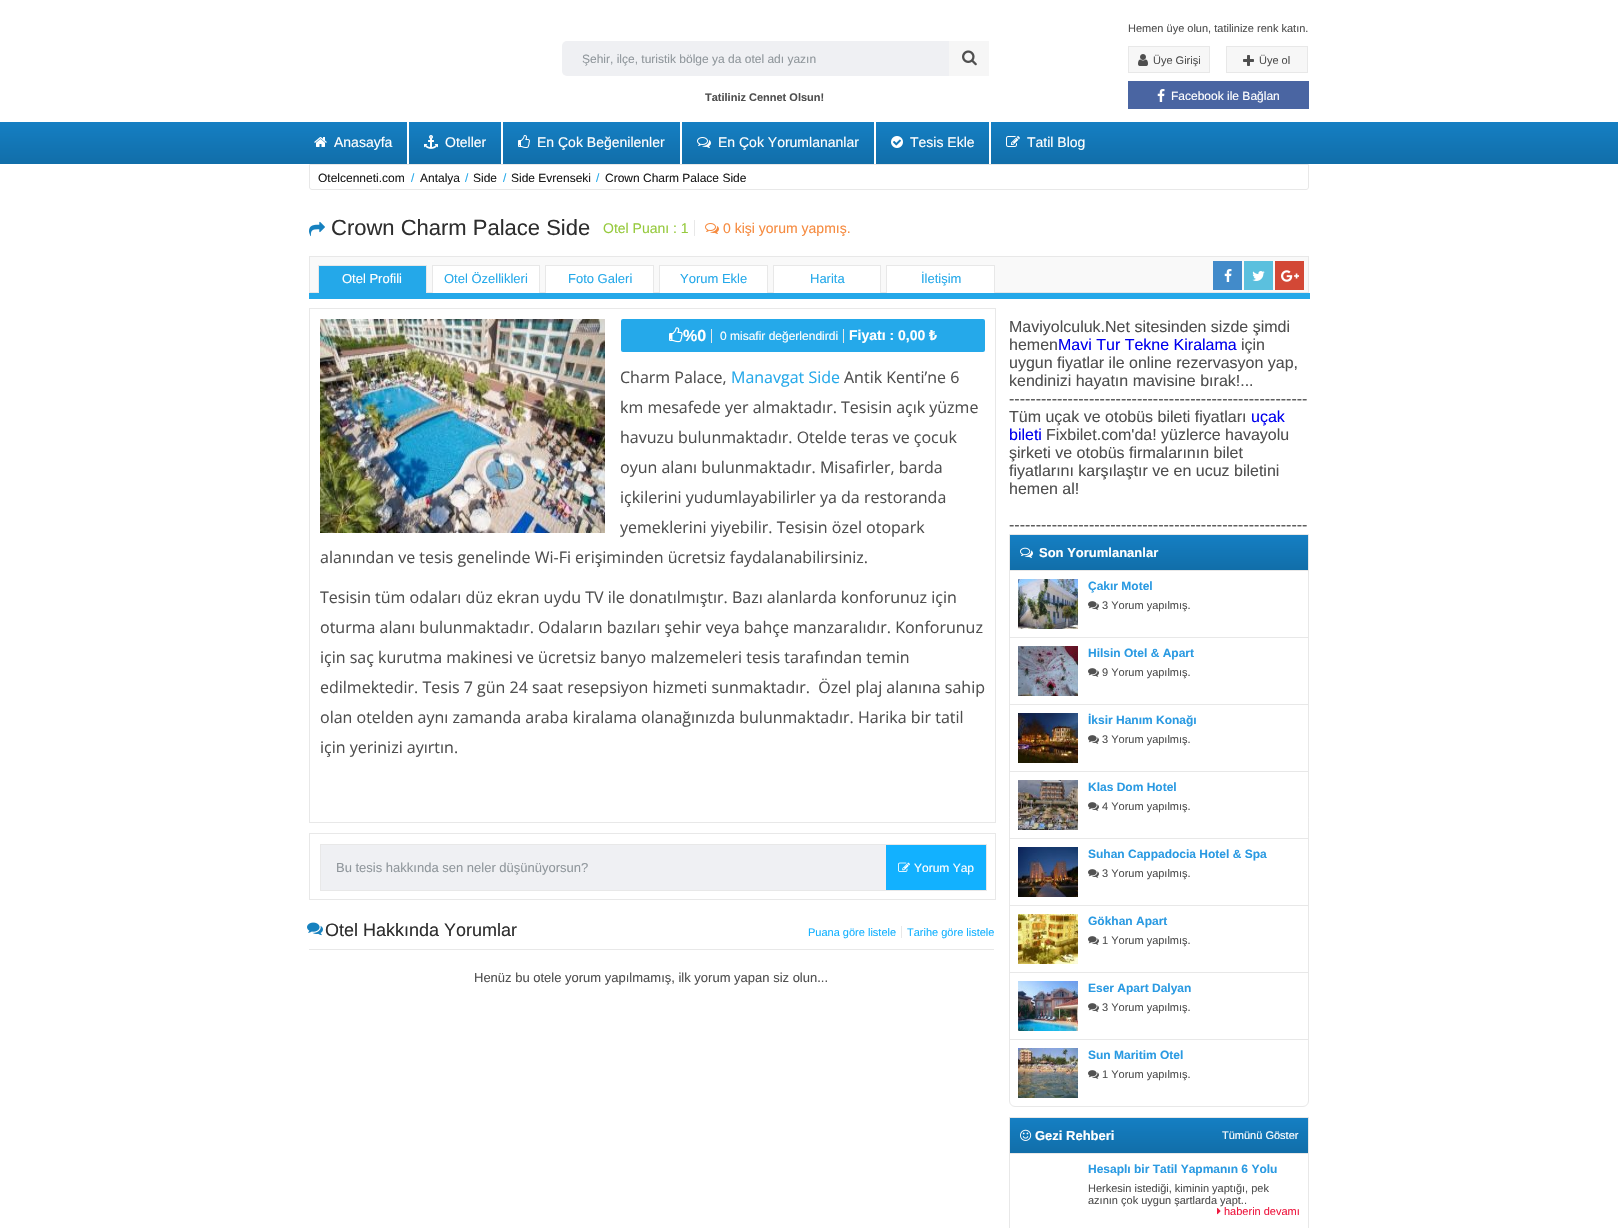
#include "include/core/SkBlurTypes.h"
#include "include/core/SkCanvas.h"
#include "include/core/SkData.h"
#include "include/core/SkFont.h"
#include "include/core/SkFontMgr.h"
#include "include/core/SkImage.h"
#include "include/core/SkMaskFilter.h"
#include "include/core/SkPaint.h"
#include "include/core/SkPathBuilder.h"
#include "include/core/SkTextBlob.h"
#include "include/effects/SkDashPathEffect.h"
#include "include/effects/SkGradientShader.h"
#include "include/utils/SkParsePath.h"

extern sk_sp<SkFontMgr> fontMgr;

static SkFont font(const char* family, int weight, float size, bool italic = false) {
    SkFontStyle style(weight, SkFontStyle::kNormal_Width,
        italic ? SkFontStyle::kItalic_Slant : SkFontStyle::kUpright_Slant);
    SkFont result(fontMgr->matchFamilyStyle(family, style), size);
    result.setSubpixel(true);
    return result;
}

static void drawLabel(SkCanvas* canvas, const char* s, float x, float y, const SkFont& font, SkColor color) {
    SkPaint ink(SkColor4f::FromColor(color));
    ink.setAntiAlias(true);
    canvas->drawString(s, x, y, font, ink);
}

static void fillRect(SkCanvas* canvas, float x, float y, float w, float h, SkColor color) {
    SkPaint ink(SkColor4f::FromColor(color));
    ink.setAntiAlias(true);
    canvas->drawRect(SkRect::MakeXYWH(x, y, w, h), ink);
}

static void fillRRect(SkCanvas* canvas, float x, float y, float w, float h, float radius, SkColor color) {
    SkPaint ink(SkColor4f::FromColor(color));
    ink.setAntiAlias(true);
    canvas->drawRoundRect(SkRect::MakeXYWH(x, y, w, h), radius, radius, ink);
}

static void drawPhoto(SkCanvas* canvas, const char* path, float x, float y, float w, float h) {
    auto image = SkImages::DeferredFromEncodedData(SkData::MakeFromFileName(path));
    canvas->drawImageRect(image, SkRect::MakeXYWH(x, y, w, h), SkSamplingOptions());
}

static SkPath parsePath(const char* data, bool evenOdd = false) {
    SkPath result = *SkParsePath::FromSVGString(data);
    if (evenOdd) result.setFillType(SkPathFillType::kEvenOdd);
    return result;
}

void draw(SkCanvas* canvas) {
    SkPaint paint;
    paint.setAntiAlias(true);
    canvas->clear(0xFFFFFFFF);
    fillRRect(canvas, 562, 41, 426, 35, 5, 0xFFEFF0F3);
    SkFont font1 = font("Liberation Sans", 400, 12);
    drawLabel(canvas, "Şehir, ilçe, turistik bölge ya da otel adı yazın", 582, 63, font1, 0xFF90979C);
    fillRect(canvas, 949, 41, 40, 35, 0xFFF6F6F6);
    drawPhoto(canvas, "assets/img1.png", 962, 50, 15, 16);
    SkFont font2 = font("Liberation Sans", 700, 11);
    drawLabel(canvas, "Tatiliniz Cennet Olsun!", 705, 101, font2, 0xFF4F4F4F);
    SkFont font3 = font("Liberation Sans", 400, 11);
    drawLabel(canvas, "Hemen üye olun, tatilinize renk katın.", 1128, 32, font3, 0xFF4F4F4F);
    paint.setColor(0xFFF7F7F7);
    canvas->drawRect(SkRect::MakeXYWH(1128.5f, 46.5f, 81, 26), paint);
    paint.setStroke(true);
    paint.setStrokeWidth(1);
    paint.setColor(0xFFE8E8E8);
    canvas->drawRect(SkRect::MakeXYWH(1128.5f, 46.5f, 81, 26), paint);
    drawPhoto(canvas, "assets/img2.png", 1138, 54, 10, 12);
    drawLabel(canvas, "Üye Girişi", 1153, 64, font3, 0xFF4F4F4F);
    paint.setStroke(false);
    paint.setColor(0xFFF7F7F7);
    canvas->drawRect(SkRect::MakeXYWH(1226.5f, 46.5f, 81, 26), paint);
    paint.setStroke(true);
    paint.setColor(0xFFE8E8E8);
    canvas->drawRect(SkRect::MakeXYWH(1226.5f, 46.5f, 81, 26), paint);
    drawPhoto(canvas, "assets/img3.png", 1243, 55, 11, 11);
    drawLabel(canvas, "Üye ol", 1259, 64, font3, 0xFF4F4F4F);
    fillRect(canvas, 1128, 81, 181, 28, 0xFF4A65A2);
    drawPhoto(canvas, "assets/img4.png", 1157, 89, 8, 13);
    drawLabel(canvas, "Facebook ile Bağlan", 1171, 100, font1, 0xFFFFFFFF);
    paint.setStroke(false);
    {
        const SkColor colors[] = {0xFF157FC3, 0xFF116EA9};
        const float stops[] = {0, 1};
        const SkPoint ends[] = {{809, 122}, {809, 164}};
        paint.setShader(SkGradientShader::MakeLinear(ends, colors, stops, 2, SkTileMode::kClamp));
        paint.setAlpha(255);
    }
    canvas->drawRect(SkRect::MakeXYWH(0, 122, 1618, 42), paint);
    fillRect(canvas, 407, 122, 2, 42, 0xFFFFFFFF);
    drawPhoto(canvas, "assets/img5.png", 314, 137, 13, 10);
    SkFont font4 = font("Liberation Sans", 400, 14);
    drawLabel(canvas, "Anasayfa", 334, 147, font4, 0xFFFFFFFF);
    fillRect(canvas, 501, 122, 2, 42, 0xFFFFFFFF);
    drawPhoto(canvas, "assets/img6.png", 424, 135, 14, 14);
    drawLabel(canvas, "Oteller", 445, 147, font4, 0xFFFFFFFF);
    fillRect(canvas, 680, 122, 2, 42, 0xFFFFFFFF);
    drawPhoto(canvas, "assets/img7.png", 518, 135, 12, 13);
    drawLabel(canvas, "En Çok Beğenilenler", 537, 147, font4, 0xFFFFFFFF);
    fillRect(canvas, 874, 122, 2, 42, 0xFFFFFFFF);
    drawPhoto(canvas, "assets/img8.png", 697, 137, 14, 11);
    drawLabel(canvas, "En Çok Yorumlananlar", 718, 147, font4, 0xFFFFFFFF);
    fillRect(canvas, 989, 122, 2, 42, 0xFFFFFFFF);
    drawPhoto(canvas, "assets/img9.png", 891, 136, 12, 12);
    drawLabel(canvas, "Tesis Ekle", 910, 147, font4, 0xFFFFFFFF);
    drawPhoto(canvas, "assets/img10.png", 1006, 136, 14, 11);
    drawLabel(canvas, "Tatil Blog", 1027, 147, font4, 0xFFFFFFFF);
    paint.setStroke(true);
    paint.setShader(nullptr);
    paint.setColor(0xFFE8E8E8);
    canvas->drawPath(parsePath("M309.5 164.5H1308.5V187C1308.5 188.5 1307.5 189.5 1306 189.5H312C310.5 189.5 309.5 188.5 309.5 187Z"), paint);
    drawLabel(canvas, "Otelcenneti.com", 318, 182, font1, 0xFF1B1B1B);
    drawLabel(canvas, "/", 411, 182, font1, 0xFF25A9EA);
    drawLabel(canvas, "Antalya", 420, 182, font1, 0xFF1B1B1B);
    drawLabel(canvas, "/", 465, 182, font1, 0xFF25A9EA);
    drawLabel(canvas, "Side", 473, 182, font1, 0xFF1B1B1B);
    drawLabel(canvas, "/", 503, 182, font1, 0xFF25A9EA);
    drawLabel(canvas, "Side Evrenseki", 511, 182, font1, 0xFF1B1B1B);
    drawLabel(canvas, "/", 596, 182, font1, 0xFF25A9EA);
    drawLabel(canvas, "Crown Charm Palace Side", 605, 182, font1, 0xFF1B1B1B);
    drawPhoto(canvas, "assets/img11.png", 309, 221, 16, 16);
    SkFont font5 = font("Liberation Sans", 400, 22);
    drawLabel(canvas, "Crown Charm Palace Side", 331, 235, font5, 0xFF2E2E2E);
    drawLabel(canvas, "Otel Puanı : 1", 603, 233, font4, 0xFF96CA3D);
    fillRect(canvas, 694, 220, 1, 16, 0xFFE8E8E8);
    drawPhoto(canvas, "assets/img12.png", 705, 223, 14, 11);
    drawLabel(canvas, "0 kişi yorum yapmış.", 723, 233, font4, 0xFFF68B40);
    paint.setStroke(false);
    paint.setColor(0xFFF9F9F9);
    canvas->drawRect(SkRect::MakeXYWH(309.5f, 256.5f, 999, 36), paint);
    paint.setStroke(true);
    paint.setColor(0xFFE8E8E8);
    canvas->drawRect(SkRect::MakeXYWH(309.5f, 256.5f, 999, 36), paint);
    canvas->drawRect(SkRect::MakeXYWH(318.5f, 265.5f, 108, 28), paint);
    fillRect(canvas, 319, 266, 107, 27, 0xFF24A8E9);
    SkFont font6 = font("Liberation Sans", 400, 13);
    drawLabel(canvas, "Otel Profili", 342, 283, font6, 0xFFFFFFFF);
    paint.setStroke(false);
    paint.setColor(0xFFFFFFFF);
    canvas->drawRect(SkRect::MakeXYWH(432.5f, 265.5f, 107, 28), paint);
    paint.setStroke(true);
    paint.setColor(0xFFE8E8E8);
    canvas->drawRect(SkRect::MakeXYWH(432.5f, 265.5f, 107, 28), paint);
    drawLabel(canvas, "Otel Özellikleri", 444, 283, font6, 0xFF25A9EA);
    paint.setStroke(false);
    paint.setColor(0xFFFFFFFF);
    canvas->drawRect(SkRect::MakeXYWH(545.5f, 265.5f, 108, 28), paint);
    paint.setStroke(true);
    paint.setColor(0xFFE8E8E8);
    canvas->drawRect(SkRect::MakeXYWH(545.5f, 265.5f, 108, 28), paint);
    drawLabel(canvas, "Foto Galeri", 568, 283, font6, 0xFF25A9EA);
    paint.setStroke(false);
    paint.setColor(0xFFFFFFFF);
    canvas->drawRect(SkRect::MakeXYWH(659.5f, 265.5f, 108, 28), paint);
    paint.setStroke(true);
    paint.setColor(0xFFE8E8E8);
    canvas->drawRect(SkRect::MakeXYWH(659.5f, 265.5f, 108, 28), paint);
    drawLabel(canvas, "Yorum Ekle", 680, 283, font6, 0xFF25A9EA);
    paint.setStroke(false);
    paint.setColor(0xFFFFFFFF);
    canvas->drawRect(SkRect::MakeXYWH(773.5f, 265.5f, 107, 28), paint);
    paint.setStroke(true);
    paint.setColor(0xFFE8E8E8);
    canvas->drawRect(SkRect::MakeXYWH(773.5f, 265.5f, 107, 28), paint);
    drawLabel(canvas, "Harita", 810, 283, font6, 0xFF25A9EA);
    paint.setStroke(false);
    paint.setColor(0xFFFFFFFF);
    canvas->drawRect(SkRect::MakeXYWH(886.5f, 265.5f, 108, 28), paint);
    paint.setStroke(true);
    paint.setColor(0xFFE8E8E8);
    canvas->drawRect(SkRect::MakeXYWH(886.5f, 265.5f, 108, 28), paint);
    drawLabel(canvas, "İletişim", 921, 283, font6, 0xFF25A9EA);
    fillRect(canvas, 1213, 261, 29, 29, 0xFF428BCA);
    drawPhoto(canvas, "assets/img13.png", 1224, 269, 8, 13);
    fillRect(canvas, 1244, 261, 29, 29, 0xFF5BC0DE);
    drawPhoto(canvas, "assets/img14.png", 1252, 271, 13, 10);
    fillRect(canvas, 1275, 261, 29, 29, 0xFFD34836);
    drawPhoto(canvas, "assets/img15.png", 1281, 270, 18, 12);
    fillRect(canvas, 309, 293, 1001, 6, 0xFF24A8E9);
    canvas->drawRect(SkRect::MakeXYWH(309.5f, 308.5f, 686, 514), paint);
    drawPhoto(canvas, "assets/img16.png", 320, 319, 285, 214);
    fillRRect(canvas, 621, 319, 364, 33, 2, 0xFF25A9EA);
    drawPhoto(canvas, "assets/img17.png", 669, 327, 14, 16);
    SkFont font7 = font("Liberation Sans", 700, 16);
    drawLabel(canvas, "%0", 683, 341, font7, 0xFFFFFFFF);
    drawLabel(canvas, "0 misafir değerlendirdi", 720, 340, font1, 0xFFFFFFFF);
    fillRect(canvas, 711, 329, 1, 14, 0xFFE8E8E8);
    SkFont font8 = font("Liberation Sans", 700, 14);
    drawLabel(canvas, "Fiyatı : 0,00", 849, 340, font8, 0xFFFFFFFF);
    fillRect(canvas, 843, 329, 1, 14, 0xFFE8E8E8);
    SkFont font9 = font("Noto Sans", 700, 14);
    drawLabel(canvas, "₺", 929, 340, font9, 0xFFFFFFFF);
    SkFont font10 = font("Open Sans", 400, 16);
    drawLabel(canvas, "Charm Palace,", 620, 383, font10, 0xFF4F4F4F);
    drawLabel(canvas, "Manavgat Side", 731, 383, font10, 0xFF25A9EA);
    drawLabel(canvas, "Antik Kenti’ne 6", 844, 383, font10, 0xFF4F4F4F);
    drawLabel(canvas, "km mesafede yer almaktadır. Tesisin açık yüzme", 620, 413, font10, 0xFF4F4F4F);
    drawLabel(canvas, "havuzu bulunmaktadır. Otelde teras ve çocuk", 620, 443, font10, 0xFF4F4F4F);
    drawLabel(canvas, "oyun alanı bulunmaktadır. Misafirler, barda", 620, 473, font10, 0xFF4F4F4F);
    drawLabel(canvas, "içkilerini yudumlayabilirler ya da restoranda", 620, 503, font10, 0xFF4F4F4F);
    drawLabel(canvas, "yemeklerini yiyebilir. Tesisin özel otopark", 620, 533, font10, 0xFF4F4F4F);
    drawLabel(canvas, "alanından ve tesis genelinde Wi-Fi erişiminden ücretsiz faydalanabilirsiniz.", 320, 563, font10, 0xFF4F4F4F);
    drawLabel(canvas, "Tesisin tüm odaları düz ekran uydu TV ile donatılmıştır. Bazı alanlarda konforunuz için", 320, 603, font10, 0xFF4F4F4F);
    drawLabel(canvas, "oturma alanı bulunmaktadır. Odaların bazıları şehir veya bahçe manzaralıdır. Konforunuz", 320, 633, font10, 0xFF4F4F4F);
    drawLabel(canvas, "için saç kurutma makinesi ve ücretsiz banyo malzemeleri tesis tarafından temin", 320, 663, font10, 0xFF4F4F4F);
    drawLabel(canvas, "edilmektedir. Tesis 7 gün 24 saat resepsiyon hizmeti sunmaktadır.  Özel plaj alanına sahip", 320, 693, font10, 0xFF4F4F4F);
    drawLabel(canvas, "olan otelden aynı zamanda araba kiralama olanağınızda bulunmaktadır. Harika bir tatil", 320, 723, font10, 0xFF4F4F4F);
    drawLabel(canvas, "için yerinizi ayırtın.", 320, 753, font10, 0xFF4F4F4F);
    canvas->drawRect(SkRect::MakeXYWH(309.5f, 833.5f, 686, 66), paint);
    fillRect(canvas, 321, 845, 565, 45, 0xFFEFF0F3);
    canvas->drawRect(SkRect::MakeXYWH(320.5f, 844.5f, 666, 46), paint);
    drawLabel(canvas, "Bu tesis hakkında sen neler düşünüyorsun?", 336, 872, font6, 0xFF90979C);
    fillRect(canvas, 886, 845, 100, 45, 0xFF12B1FF);
    drawPhoto(canvas, "assets/img18.png", 898, 862, 12, 10);
    drawLabel(canvas, "Yorum Yap", 914, 872, font1, 0xFFFFFFFF);
    fillRect(canvas, 309, 949, 685, 1, 0xFFE8E8E8);
    drawPhoto(canvas, "assets/img19.png", 307, 922, 16, 14);
    SkFont font11 = font("Liberation Sans", 400, 18);
    drawLabel(canvas, "Otel Hakkında Yorumlar", 325, 936, font11, 0xFF2E2E2E);
    drawLabel(canvas, "Puana göre listele", 808, 936, font3, 0xFF12B1FF);
    fillRect(canvas, 901, 926, 1, 12, 0xFFE8E8E8);
    drawLabel(canvas, "Tarihe göre listele", 907, 936, font3, 0xFF12B1FF);
    drawLabel(canvas, "Henüz bu otele yorum yapılmamış, ilk yorum yapan siz olun...", 474, 982, font6, 0xFF4F4F4F);
    SkFont font12 = font("Liberation Sans", 400, 16);
    drawLabel(canvas, "Maviyolculuk.Net sitesinden sizde şimdi", 1009, 332, font12, 0xFF4F4F4F);
    drawLabel(canvas, "hemen", 1009, 350, font12, 0xFF4F4F4F);
    drawLabel(canvas, "Mavi Tur Tekne Kiralama", 1058, 350, font12, 0xFF0000EE);
    drawLabel(canvas, "için", 1241, 350, font12, 0xFF4F4F4F);
    drawLabel(canvas, "uygun fiyatlar ile online rezervasyon yap,", 1009, 368, font12, 0xFF4F4F4F);
    drawLabel(canvas, "kendinizi hayatın mavisine bırak!...", 1009, 386, font12, 0xFF4F4F4F);
    drawLabel(canvas, "--------------------------------------------------------", 1009, 404, font12, 0xFF4F4F4F);
    drawLabel(canvas, "Tüm uçak ve otobüs bileti fiyatları", 1009, 422, font12, 0xFF4F4F4F);
    drawLabel(canvas, "uçak", 1251, 422, font12, 0xFF0000EE);
    drawLabel(canvas, "bileti", 1009, 440, font12, 0xFF0000EE);
    drawLabel(canvas, "Fixbilet.com'da! yüzlerce havayolu", 1046, 440, font12, 0xFF4F4F4F);
    drawLabel(canvas, "şirketi ve otobüs firmalarının bilet", 1009, 458, font12, 0xFF4F4F4F);
    drawLabel(canvas, "fiyatlarını karşılaştır ve en ucuz biletini", 1009, 476, font12, 0xFF4F4F4F);
    drawLabel(canvas, "hemen al!", 1009, 494, font12, 0xFF4F4F4F);
    drawLabel(canvas, "--------------------------------------------------------", 1009, 530, font12, 0xFF4F4F4F);
    canvas->drawPath(parsePath("M1009.5 534.5H1308.5V1101C1308.5 1104 1306 1106.5 1303 1106.5H1015C1012 1106.5 1009.5 1104 1009.5 1101Z"), paint);
    paint.setStroke(false);
    {
        const SkColor colors[] = {0xFF157FC3, 0xFF116EA9};
        const float stops[] = {0, 1};
        const SkPoint ends[] = {{1159, 535}, {1159, 570}};
        paint.setShader(SkGradientShader::MakeLinear(ends, colors, stops, 2, SkTileMode::kClamp));
        paint.setAlpha(255);
    }
    canvas->drawRect(SkRect::MakeXYWH(1010, 535, 298, 35), paint);
    fillRect(canvas, 1010, 570, 298, 1, 0xFFE8E8E8);
    drawPhoto(canvas, "assets/img20.png", 1020, 547, 13, 11);
    SkFont font13 = font("Liberation Sans", 700, 13);
    drawLabel(canvas, "Son Yorumlananlar", 1039, 557, font13, 0xFFFFFFFF);
    fillRect(canvas, 1010, 637, 298, 1, 0xFFE8E8E8);
    drawPhoto(canvas, "assets/img21.png", 1018, 579, 60, 50);
    SkFont font14 = font("Liberation Sans", 700, 12);
    drawLabel(canvas, "Çakır Motel", 1088, 590, font14, 0xFF2A9AE2);
    drawPhoto(canvas, "assets/img22.png", 1088, 601, 11, 9);
    drawLabel(canvas, "3 Yorum yapılmış.", 1102, 609, font3, 0xFF4F4F4F);
    fillRect(canvas, 1010, 704, 298, 1, 0xFFE8E8E8);
    drawPhoto(canvas, "assets/img23.png", 1018, 646, 60, 50);
    drawLabel(canvas, "Hilsin Otel & Apart", 1088, 657, font14, 0xFF2A9AE2);
    drawPhoto(canvas, "assets/img22.png", 1088, 668, 11, 9);
    drawLabel(canvas, "9 Yorum yapılmış.", 1102, 676, font3, 0xFF4F4F4F);
    fillRect(canvas, 1010, 771, 298, 1, 0xFFE8E8E8);
    drawPhoto(canvas, "assets/img24.png", 1018, 713, 60, 50);
    drawLabel(canvas, "İksir Hanım Konağı", 1088, 724, font14, 0xFF2A9AE2);
    drawPhoto(canvas, "assets/img22.png", 1088, 735, 11, 9);
    drawLabel(canvas, "3 Yorum yapılmış.", 1102, 743, font3, 0xFF4F4F4F);
    fillRect(canvas, 1010, 838, 298, 1, 0xFFE8E8E8);
    drawPhoto(canvas, "assets/img25.png", 1018, 780, 60, 50);
    drawLabel(canvas, "Klas Dom Hotel", 1088, 791, font14, 0xFF2A9AE2);
    drawPhoto(canvas, "assets/img22.png", 1088, 802, 11, 9);
    drawLabel(canvas, "4 Yorum yapılmış.", 1102, 810, font3, 0xFF4F4F4F);
    fillRect(canvas, 1010, 905, 298, 1, 0xFFE8E8E8);
    drawPhoto(canvas, "assets/img26.png", 1018, 847, 60, 50);
    drawLabel(canvas, "Suhan Cappadocia Hotel & Spa", 1088, 858, font14, 0xFF2A9AE2);
    drawPhoto(canvas, "assets/img22.png", 1088, 869, 11, 9);
    drawLabel(canvas, "3 Yorum yapılmış.", 1102, 877, font3, 0xFF4F4F4F);
    fillRect(canvas, 1010, 972, 298, 1, 0xFFE8E8E8);
    drawPhoto(canvas, "assets/img27.png", 1018, 914, 60, 50);
    drawLabel(canvas, "Gökhan Apart", 1088, 925, font14, 0xFF2A9AE2);
    drawPhoto(canvas, "assets/img22.png", 1088, 936, 11, 9);
    drawLabel(canvas, "1 Yorum yapılmış.", 1102, 944, font3, 0xFF4F4F4F);
    fillRect(canvas, 1010, 1039, 298, 1, 0xFFE8E8E8);
    drawPhoto(canvas, "assets/img28.png", 1018, 981, 60, 50);
    drawLabel(canvas, "Eser Apart Dalyan", 1088, 992, font14, 0xFF2A9AE2);
    drawPhoto(canvas, "assets/img22.png", 1088, 1003, 11, 9);
    drawLabel(canvas, "3 Yorum yapılmış.", 1102, 1011, font3, 0xFF4F4F4F);
    drawPhoto(canvas, "assets/img29.png", 1018, 1048, 60, 50);
    drawLabel(canvas, "Sun Maritim Otel", 1088, 1059, font14, 0xFF2A9AE2);
    drawPhoto(canvas, "assets/img22.png", 1088, 1070, 11, 9);
    drawLabel(canvas, "1 Yorum yapılmış.", 1102, 1078, font3, 0xFF4F4F4F);
    paint.setStroke(true);
    paint.setShader(nullptr);
    paint.setColor(0xFFE8E8E8);
    canvas->drawRect(SkRect::MakeXYWH(1009.5f, 1117.5f, 299, 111), paint);
    paint.setStroke(false);
    {
        const SkColor colors[] = {0xFF157FC3, 0xFF116EA9};
        const float stops[] = {0, 1};
        const SkPoint ends[] = {{1159, 1118}, {1159, 1153}};
        paint.setShader(SkGradientShader::MakeLinear(ends, colors, stops, 2, SkTileMode::kClamp));
        paint.setAlpha(255);
    }
    canvas->drawRect(SkRect::MakeXYWH(1010, 1118, 298, 35), paint);
    fillRect(canvas, 1010, 1153, 298, 1, 0xFFE8E8E8);
    drawPhoto(canvas, "assets/img30.png", 1020, 1129, 12, 12);
    drawLabel(canvas, "Gezi Rehberi", 1035, 1140, font13, 0xFFFFFFFF);
    drawLabel(canvas, "Tümünü Göster", 1222, 1139, font3, 0xFFFFFFFF);
    drawLabel(canvas, "Hesaplı bir Tatil Yapmanın 6 Yolu", 1088, 1173, font14, 0xFF2A9AE2);
    drawLabel(canvas, "Herkesin istediği, kiminin yaptığı, pek", 1088, 1192, font3, 0xFF4F4F4F);
    drawLabel(canvas, "azının çok uygun şartlarda yapt..", 1088, 1204, font3, 0xFF4F4F4F);
    drawPhoto(canvas, "assets/img31.png", 1217, 1208, 4, 7);
    drawLabel(canvas, "haberin devamı", 1224, 1215, font3, 0xFFEE1940);
}
